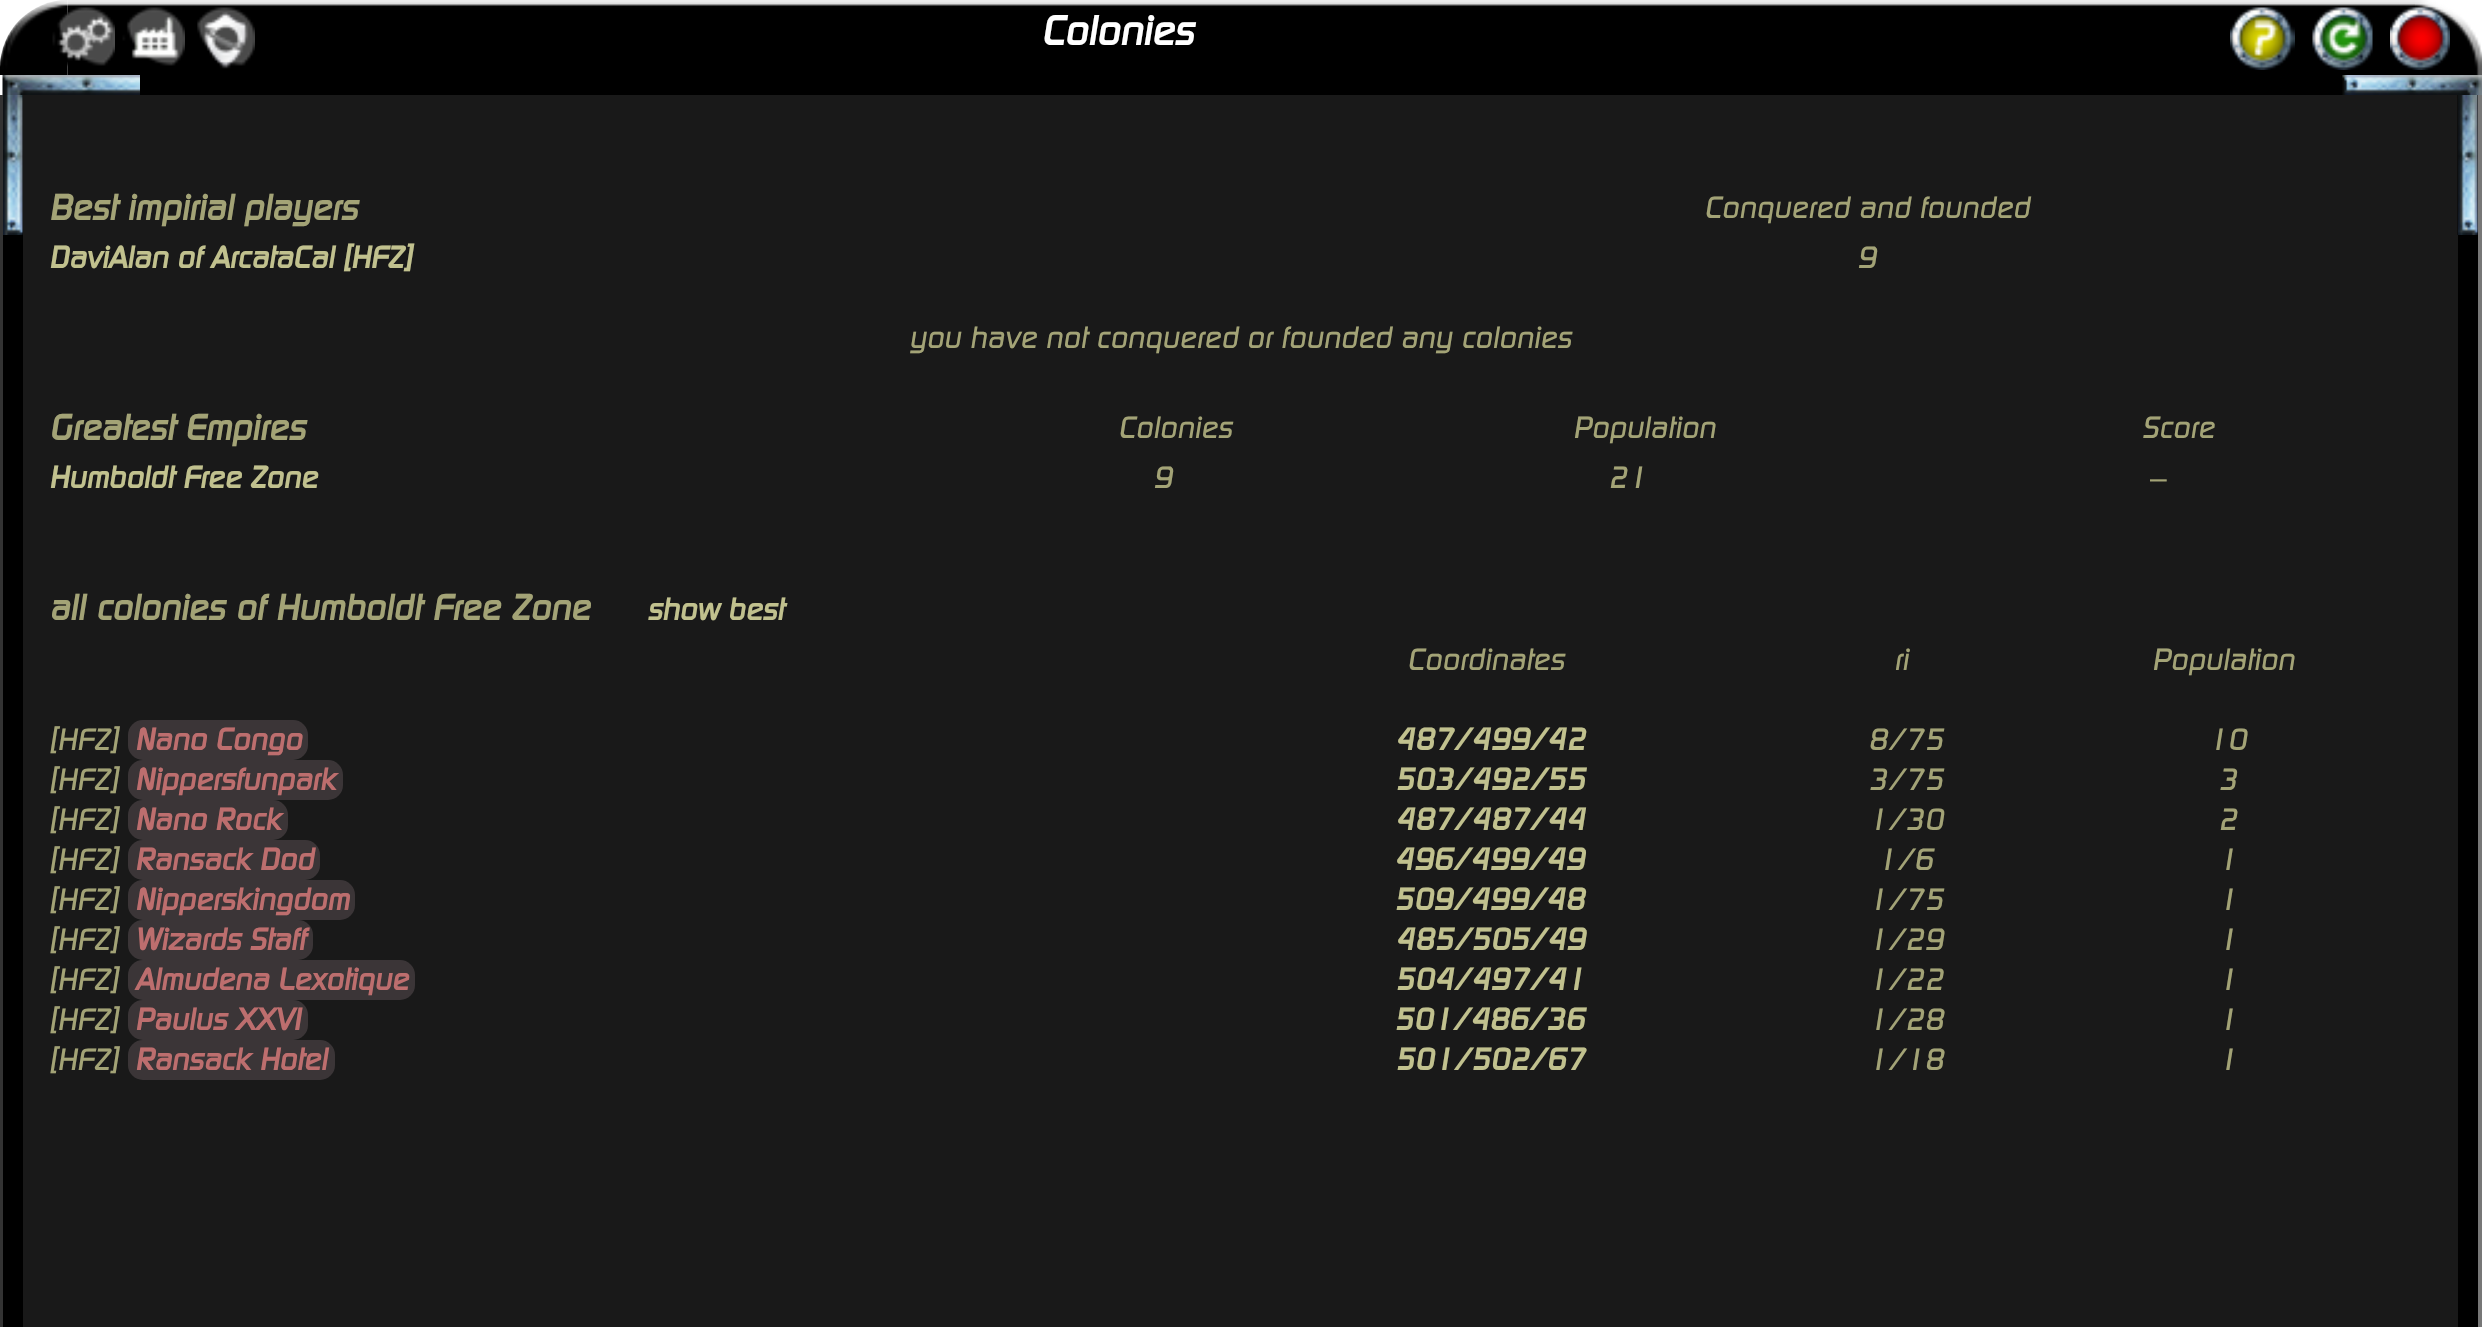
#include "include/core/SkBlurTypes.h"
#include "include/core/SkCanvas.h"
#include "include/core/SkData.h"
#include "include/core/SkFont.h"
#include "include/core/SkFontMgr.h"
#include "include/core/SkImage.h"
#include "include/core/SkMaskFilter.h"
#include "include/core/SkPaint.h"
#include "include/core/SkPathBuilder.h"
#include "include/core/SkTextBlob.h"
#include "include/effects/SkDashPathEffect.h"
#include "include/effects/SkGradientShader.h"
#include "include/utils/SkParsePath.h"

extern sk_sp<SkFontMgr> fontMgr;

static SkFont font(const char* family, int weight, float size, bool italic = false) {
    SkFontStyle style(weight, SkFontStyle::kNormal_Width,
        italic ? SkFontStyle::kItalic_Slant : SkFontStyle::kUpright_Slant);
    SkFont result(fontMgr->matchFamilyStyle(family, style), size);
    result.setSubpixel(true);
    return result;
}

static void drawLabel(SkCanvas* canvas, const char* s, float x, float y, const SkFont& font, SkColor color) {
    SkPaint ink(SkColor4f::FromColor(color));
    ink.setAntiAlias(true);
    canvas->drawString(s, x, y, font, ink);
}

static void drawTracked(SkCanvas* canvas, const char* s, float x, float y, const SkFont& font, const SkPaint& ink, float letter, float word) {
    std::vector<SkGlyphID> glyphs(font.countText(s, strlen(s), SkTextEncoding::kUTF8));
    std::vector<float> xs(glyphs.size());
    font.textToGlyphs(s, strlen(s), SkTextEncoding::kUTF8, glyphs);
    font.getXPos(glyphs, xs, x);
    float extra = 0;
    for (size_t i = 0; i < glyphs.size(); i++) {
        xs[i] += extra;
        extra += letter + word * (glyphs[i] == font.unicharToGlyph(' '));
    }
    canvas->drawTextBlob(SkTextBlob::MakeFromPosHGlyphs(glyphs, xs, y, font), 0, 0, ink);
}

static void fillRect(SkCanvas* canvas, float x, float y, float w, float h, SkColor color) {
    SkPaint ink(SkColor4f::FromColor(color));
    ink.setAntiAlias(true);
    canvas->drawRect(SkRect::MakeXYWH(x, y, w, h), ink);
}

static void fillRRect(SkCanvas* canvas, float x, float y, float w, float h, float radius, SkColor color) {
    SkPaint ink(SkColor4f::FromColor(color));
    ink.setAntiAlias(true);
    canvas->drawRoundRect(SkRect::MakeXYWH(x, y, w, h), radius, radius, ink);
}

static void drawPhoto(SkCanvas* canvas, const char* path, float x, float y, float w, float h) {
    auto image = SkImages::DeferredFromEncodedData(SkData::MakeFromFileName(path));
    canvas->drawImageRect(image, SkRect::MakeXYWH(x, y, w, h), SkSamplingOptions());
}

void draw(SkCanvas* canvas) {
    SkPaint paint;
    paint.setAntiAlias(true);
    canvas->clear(0xFFFFFFFF);
    drawPhoto(canvas, "assets/img1.png", 0, 0, 68, 75);
    drawPhoto(canvas, "assets/img2.png", 67, 0, 2348, 75);
    drawPhoto(canvas, "assets/img3.png", 2415, 0, 67, 75);
    drawPhoto(canvas, "assets/img4.png", 52, 7, 63, 60);
    drawPhoto(canvas, "assets/img5.png", 122, 7, 63, 59);
    drawPhoto(canvas, "assets/img6.png", 197, 7, 58, 62);
    SkFont font1 = font("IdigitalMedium", 700, 40);
    drawLabel(canvas, "Colonies", 1041, 45, font1, 0xFFFFFFFF);
    drawPhoto(canvas, "assets/img7.png", 2230, 7, 65, 63);
    drawPhoto(canvas, "assets/img8.png", 2312, 7, 61, 63);
    drawPhoto(canvas, "assets/img9.png", 2390, 7, 60, 63);
    drawPhoto(canvas, "assets/img10.png", 2, 75, 138, 20);
    fillRect(canvas, 140, 75, 2203, 20, 0xFF000000);
    drawPhoto(canvas, "assets/img11.png", 2342, 75, 140, 20);
    fillRect(canvas, 3, 95, 20, 1232, 0xFF000000);
    drawPhoto(canvas, "assets/img12.png", 3, 95, 20, 140);
    fillRect(canvas, 0, 95, 3, 1232, 0xFF333333);
    fillRect(canvas, 2458, 95, 20, 1232, 0xFF000000);
    drawPhoto(canvas, "assets/img13.png", 2457, 95, 21, 140);
    fillRect(canvas, 23, 95, 2435, 1232, 0xE6000000);
    SkFont font2 = font("IdigitalMedium", 700, 35);
    drawLabel(canvas, "Best impirial players", 49, 220, font2, 0xFFA3A376);
    SkFont font3 = font("IdigitalMedium", 500, 30);
    drawLabel(canvas, "Conquered and founded", 1704, 218, font3, 0xFFA3A376);
    SkFont font4 = font("IdigitalMedium", 700, 30);
    drawLabel(canvas, "DaviAlan of ArcataCal [HFZ]", 49, 268, font4, 0xFFC1C18E);
    drawLabel(canvas, "9", 1857, 268, font3, 0xFFA3A376);
    drawLabel(canvas, "you have not conquered or founded any colonies", 909, 348, font3, 0xFFA3A376);
    drawLabel(canvas, "Greatest Empires", 49, 440, font2, 0xFFA3A376);
    drawLabel(canvas, "Colonies", 1118, 438, font3, 0xFFA3A376);
    drawLabel(canvas, "Population", 1573, 438, font3, 0xFFA3A376);
    drawLabel(canvas, "Score", 2142, 438, font3, 0xFFA3A376);
    drawLabel(canvas, "Humboldt Free Zone", 49, 488, font4, 0xFFC1C18E);
    drawLabel(canvas, "9", 1153, 488, font3, 0xFFA3A376);
    drawLabel(canvas, "21", 1608, 488, font3, 0xFFA3A376);
    SkFont font5 = font("Liberation Sans", 400, 30);
    drawLabel(canvas, "–", 2150, 488, font5, 0xFFA3A376);
    paint.setColor(0xFFA3A376);
    drawTracked(canvas, "all colonies of Humboldt Free Zone", 49, 620, font2, paint, 0, 0.75f);
    drawLabel(canvas, "show best", 647, 620, font4, 0xFFC1C18E);
    drawLabel(canvas, "Coordinates", 1407, 670, font3, 0xFFA3A376);
    drawLabel(canvas, "ri", 1894, 670, font3, 0xFFA3A376);
    drawLabel(canvas, "Population", 2152, 670, font3, 0xFFA3A376);
    drawLabel(canvas, "[HFZ]", 49, 750, font3, 0xFFA3A376);
    fillRRect(canvas, 128, 720, 180, 40, 15, 0xFF3B3537);
    drawLabel(canvas, "Nano Congo", 135, 750, font4, 0xFFBD6E6E);
    drawLabel(canvas, "487/499/42", 1395, 750, font4, 0xFFC1C18E);
    drawLabel(canvas, "8/75", 1868, 750, font3, 0xFFA3A376);
    drawLabel(canvas, "10", 2208, 750, font3, 0xFFA3A376);
    drawLabel(canvas, "[HFZ]", 49, 790, font3, 0xFFA3A376);
    fillRRect(canvas, 128, 760, 215, 40, 15, 0xFF3B3537);
    drawLabel(canvas, "Nippersfunpark", 135, 790, font4, 0xFFBD6E6E);
    drawLabel(canvas, "503/492/55", 1395, 790, font4, 0xFFC1C18E);
    drawLabel(canvas, "3/75", 1868, 790, font3, 0xFFA3A376);
    drawLabel(canvas, "3", 2218, 790, font3, 0xFFA3A376);
    drawLabel(canvas, "[HFZ]", 49, 830, font3, 0xFFA3A376);
    fillRRect(canvas, 128, 800, 160, 40, 15, 0xFF3B3537);
    drawLabel(canvas, "Nano Rock", 135, 830, font4, 0xFFBD6E6E);
    drawLabel(canvas, "487/487/44", 1395, 830, font4, 0xFFC1C18E);
    drawLabel(canvas, "1/30", 1868, 830, font3, 0xFFA3A376);
    drawLabel(canvas, "2", 2218, 830, font3, 0xFFA3A376);
    drawLabel(canvas, "[HFZ]", 49, 870, font3, 0xFFA3A376);
    fillRRect(canvas, 128, 840, 192, 40, 15, 0xFF3B3537);
    drawLabel(canvas, "Ransack Dod", 135, 870, font4, 0xFFBD6E6E);
    drawLabel(canvas, "496/499/49", 1394, 870, font4, 0xFFC1C18E);
    drawLabel(canvas, "1/6", 1877, 870, font3, 0xFFA3A376);
    drawLabel(canvas, "1", 2218, 870, font3, 0xFFA3A376);
    drawLabel(canvas, "[HFZ]", 49, 910, font3, 0xFFA3A376);
    fillRRect(canvas, 128, 880, 227, 40, 15, 0xFF3B3537);
    drawLabel(canvas, "Nipperskingdom", 135, 910, font4, 0xFFBD6E6E);
    drawLabel(canvas, "509/499/48", 1394, 910, font4, 0xFFC1C18E);
    drawLabel(canvas, "1/75", 1868, 910, font3, 0xFFA3A376);
    drawLabel(canvas, "1", 2218, 910, font3, 0xFFA3A376);
    drawLabel(canvas, "[HFZ]", 49, 950, font3, 0xFFA3A376);
    fillRRect(canvas, 128, 920, 185, 40, 15, 0xFF3B3537);
    drawLabel(canvas, "Wizards Staff", 135, 950, font4, 0xFFBD6E6E);
    drawLabel(canvas, "485/505/49", 1395, 950, font4, 0xFFC1C18E);
    drawLabel(canvas, "1/29", 1868, 950, font3, 0xFFA3A376);
    drawLabel(canvas, "1", 2218, 950, font3, 0xFFA3A376);
    drawLabel(canvas, "[HFZ]", 49, 990, font3, 0xFFA3A376);
    fillRRect(canvas, 128, 960, 287, 40, 15, 0xFF3B3537);
    drawLabel(canvas, "Almudena Lexotique", 135, 990, font4, 0xFFBD6E6E);
    drawLabel(canvas, "504/497/41", 1395, 990, font4, 0xFFC1C18E);
    drawLabel(canvas, "1/22", 1868, 990, font3, 0xFFA3A376);
    drawLabel(canvas, "1", 2218, 990, font3, 0xFFA3A376);
    drawLabel(canvas, "[HFZ]", 49, 1030, font3, 0xFFA3A376);
    fillRRect(canvas, 128, 1000, 180, 40, 15, 0xFF3B3537);
    drawLabel(canvas, "Paulus XXVI", 135, 1030, font4, 0xFFBD6E6E);
    drawLabel(canvas, "501/486/36", 1394, 1030, font4, 0xFFC1C18E);
    drawLabel(canvas, "1/28", 1868, 1030, font3, 0xFFA3A376);
    drawLabel(canvas, "1", 2218, 1030, font3, 0xFFA3A376);
    drawLabel(canvas, "[HFZ]", 49, 1070, font3, 0xFFA3A376);
    fillRRect(canvas, 128, 1040, 207, 40, 15, 0xFF3B3537);
    drawLabel(canvas, "Ransack Hotel", 135, 1070, font4, 0xFFBD6E6E);
    drawLabel(canvas, "501/502/67", 1395, 1070, font4, 0xFFC1C18E);
    drawLabel(canvas, "1/18", 1868, 1070, font3, 0xFFA3A376);
    drawLabel(canvas, "1", 2218, 1070, font3, 0xFFA3A376);
    fillRect(canvas, 2478, 95, 4, 1232, 0xFF777777);
}
